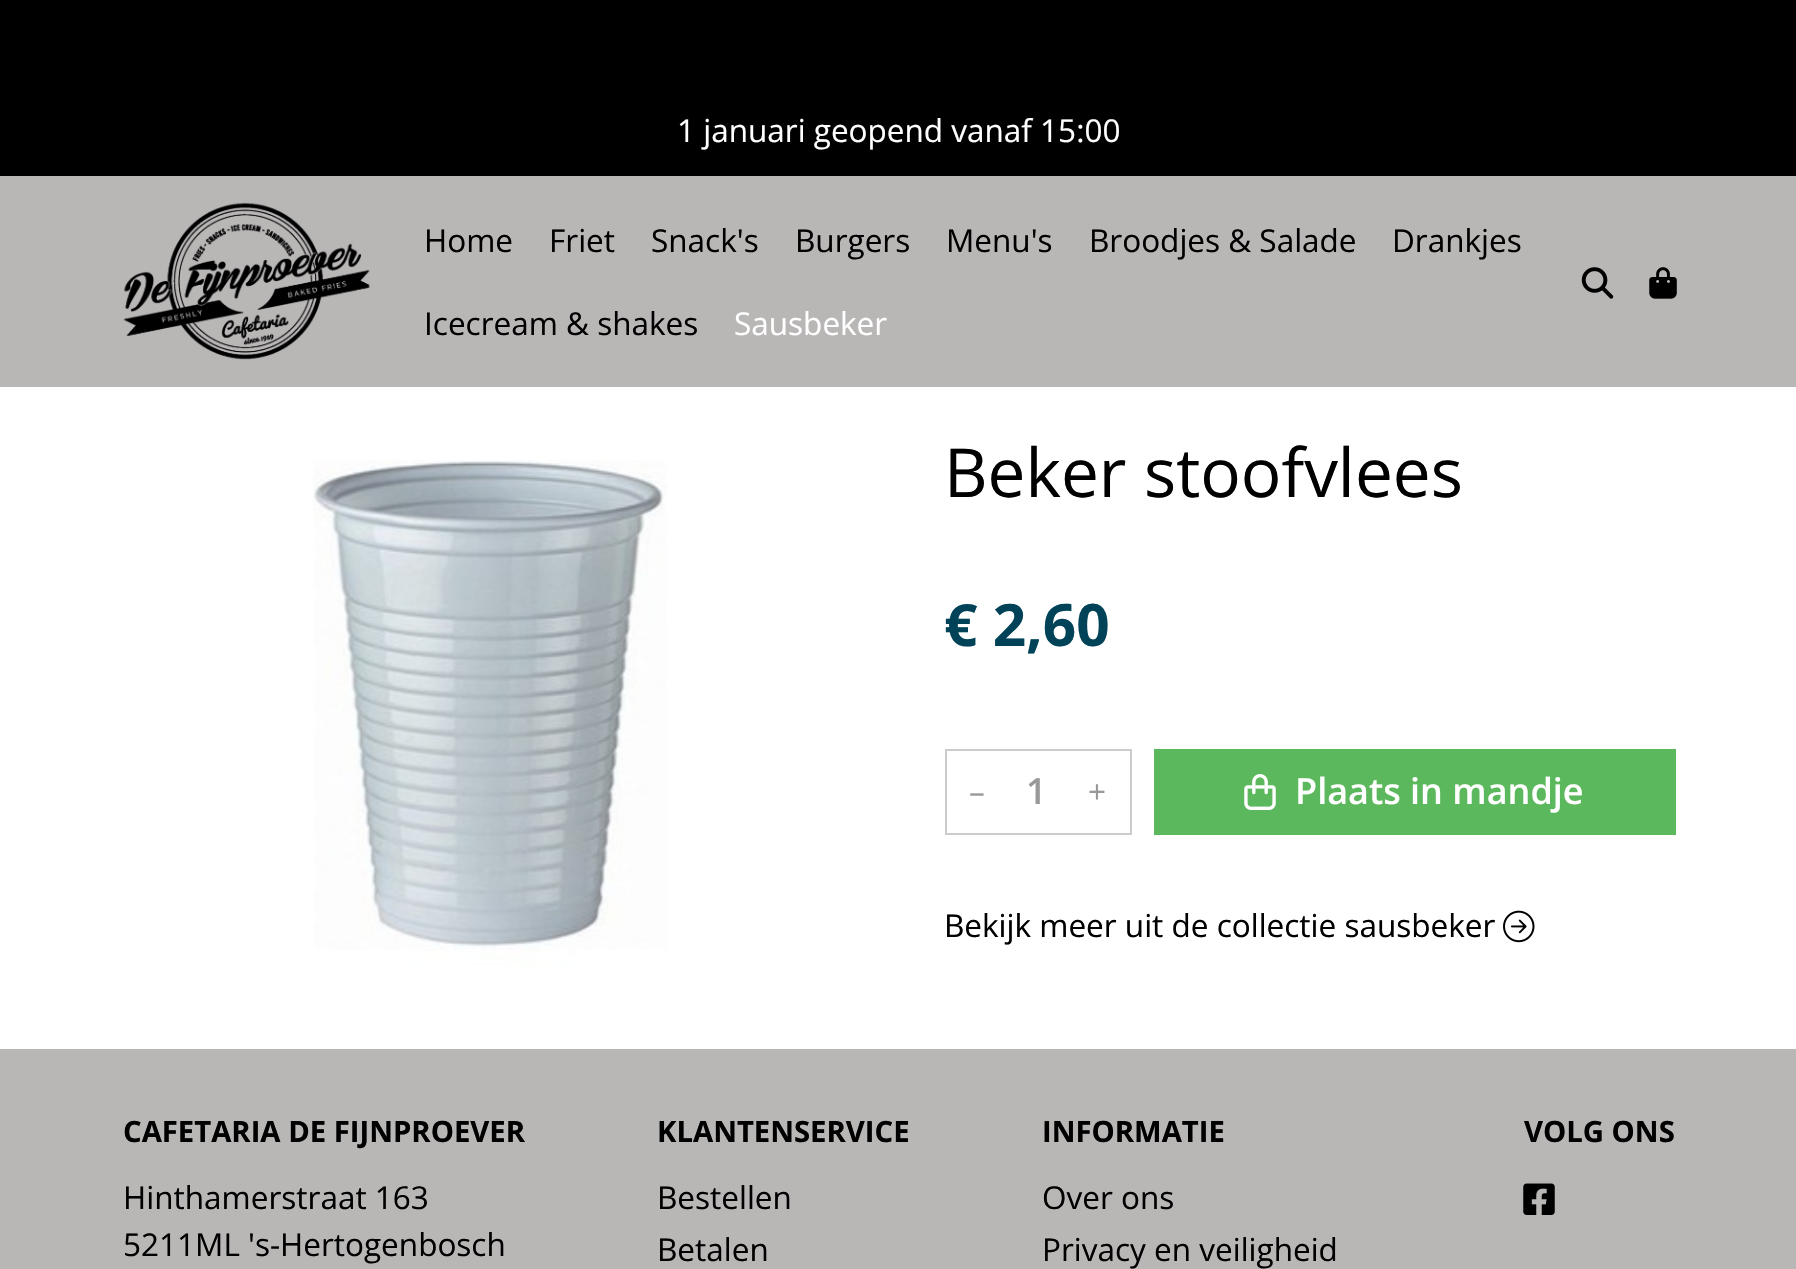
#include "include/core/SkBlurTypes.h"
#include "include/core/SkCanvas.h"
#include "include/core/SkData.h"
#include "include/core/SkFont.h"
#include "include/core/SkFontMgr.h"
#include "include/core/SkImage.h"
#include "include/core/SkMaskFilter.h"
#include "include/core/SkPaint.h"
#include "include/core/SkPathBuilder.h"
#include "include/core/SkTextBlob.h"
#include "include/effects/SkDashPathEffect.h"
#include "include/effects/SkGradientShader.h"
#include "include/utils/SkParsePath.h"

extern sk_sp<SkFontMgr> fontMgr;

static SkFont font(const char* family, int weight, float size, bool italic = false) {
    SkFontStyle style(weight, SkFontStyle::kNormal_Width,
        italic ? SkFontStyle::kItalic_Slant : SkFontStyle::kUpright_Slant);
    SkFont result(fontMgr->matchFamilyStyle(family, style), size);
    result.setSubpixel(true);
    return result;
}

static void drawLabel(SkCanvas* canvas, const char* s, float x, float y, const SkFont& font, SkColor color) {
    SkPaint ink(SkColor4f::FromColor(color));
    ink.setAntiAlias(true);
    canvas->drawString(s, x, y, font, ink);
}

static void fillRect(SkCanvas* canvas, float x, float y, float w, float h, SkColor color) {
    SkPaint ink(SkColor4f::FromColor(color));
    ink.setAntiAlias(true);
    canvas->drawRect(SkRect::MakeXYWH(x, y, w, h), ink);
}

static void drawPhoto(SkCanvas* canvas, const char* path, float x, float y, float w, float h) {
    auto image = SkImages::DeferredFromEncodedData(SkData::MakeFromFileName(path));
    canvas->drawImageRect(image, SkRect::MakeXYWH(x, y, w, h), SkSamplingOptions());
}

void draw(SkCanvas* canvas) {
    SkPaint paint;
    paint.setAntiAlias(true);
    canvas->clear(0xFFFFFFFF);
    fillRect(canvas, 0, 0, 1796, 176, 0xFF000000);
    SkFont font1 = font("Open Sans", 400, 31.5f);
    drawLabel(canvas, "1 januari geopend vanaf 15:00", 677, 142, font1, 0xFFFFFFFF);
    fillRect(canvas, 0, 176, 1796, 211, 0xFFB9B6B6);
    drawPhoto(canvas, "assets/img1.png", 123, 202, 247, 158);
    drawLabel(canvas, "Home", 424, 252, font1, 0xFF000000);
    drawLabel(canvas, "Friet", 549, 252, font1, 0xFF000000);
    drawLabel(canvas, "Snack's", 651, 252, font1, 0xFF000000);
    drawLabel(canvas, "Burgers", 795, 252, font1, 0xFF000000);
    drawLabel(canvas, "Menu's", 946, 252, font1, 0xFF000000);
    drawLabel(canvas, "Broodjes & Salade", 1089, 252, font1, 0xFF000000);
    drawLabel(canvas, "Drankjes", 1392, 252, font1, 0xFF000000);
    drawLabel(canvas, "Icecream & shakes", 424, 335, font1, 0xFF000000);
    drawLabel(canvas, "Sausbeker", 734, 335, font1, 0xFFFFFFFF);
    drawPhoto(canvas, "assets/img2.png", 1581, 267, 33, 32);
    drawPhoto(canvas, "assets/img3.png", 1649, 267, 28, 32);
    drawPhoto(canvas, "assets/img4.png", 313, 460, 355, 506);
    SkFont font2 = font("Open Sans", 400, 67.5f);
    drawLabel(canvas, "Beker stoofvlees", 944, 497, font2, 0xFF000000);
    SkFont font3 = font("Open Sans", 700, 58.5f);
    drawLabel(canvas, "€ 2,60", 944, 646, font3, 0xFF004358);
    paint.setStroke(true);
    paint.setStrokeWidth(2);
    paint.setColor(0xFFCCCCCC);
    canvas->drawRect(SkRect::MakeXYWH(946, 750, 185, 84), paint);
    drawLabel(canvas, "–", 969, 803, font1, 0xFF999999);
    SkFont font4 = font("Open Sans", 600, 36);
    drawLabel(canvas, "1", 1026, 804, font4, 0xFF999999);
    drawLabel(canvas, "+", 1088, 803, font1, 0xFF999999);
    fillRect(canvas, 1154, 749, 522, 86, 0xFF5CB85C);
    drawPhoto(canvas, "assets/img5.png", 1244, 774, 32, 36);
    drawLabel(canvas, "Plaats in mandje", 1295, 804, font4, 0xFFFFFFFF);
    drawLabel(canvas, "Bekijk meer uit de collectie sausbeker", 944, 937, font1, 0xFF000000);
    drawPhoto(canvas, "assets/img6.png", 1503, 910, 32, 33);
    fillRect(canvas, 0, 1049, 1796, 220, 0xFFB9B6B6);
    SkFont font5 = font("Open Sans", 700, 29.25f);
    drawLabel(canvas, "CAFETARIA DE FIJNPROEVER", 123, 1142, font5, 0xFF000000);
    drawLabel(canvas, "Hinthamerstraat 163", 123, 1209, font1, 0xFF000000);
    drawLabel(canvas, "5211ML 's-Hertogenbosch", 123, 1256, font1, 0xFF000000);
    drawLabel(canvas, "KLANTENSERVICE", 657, 1142, font5, 0xFF000000);
    drawLabel(canvas, "Bestellen", 657, 1209, font1, 0xFF000000);
    drawLabel(canvas, "Betalen", 657, 1261, font1, 0xFF000000);
    drawLabel(canvas, "INFORMATIE", 1042, 1142, font5, 0xFF000000);
    drawLabel(canvas, "Over ons", 1042, 1209, font1, 0xFF000000);
    drawLabel(canvas, "Privacy en veiligheid", 1042, 1261, font1, 0xFF000000);
    drawLabel(canvas, "VOLG ONS", 1524, 1142, font5, 0xFF000000);
    drawPhoto(canvas, "assets/img7.png", 1523, 1183, 32, 32);
}
